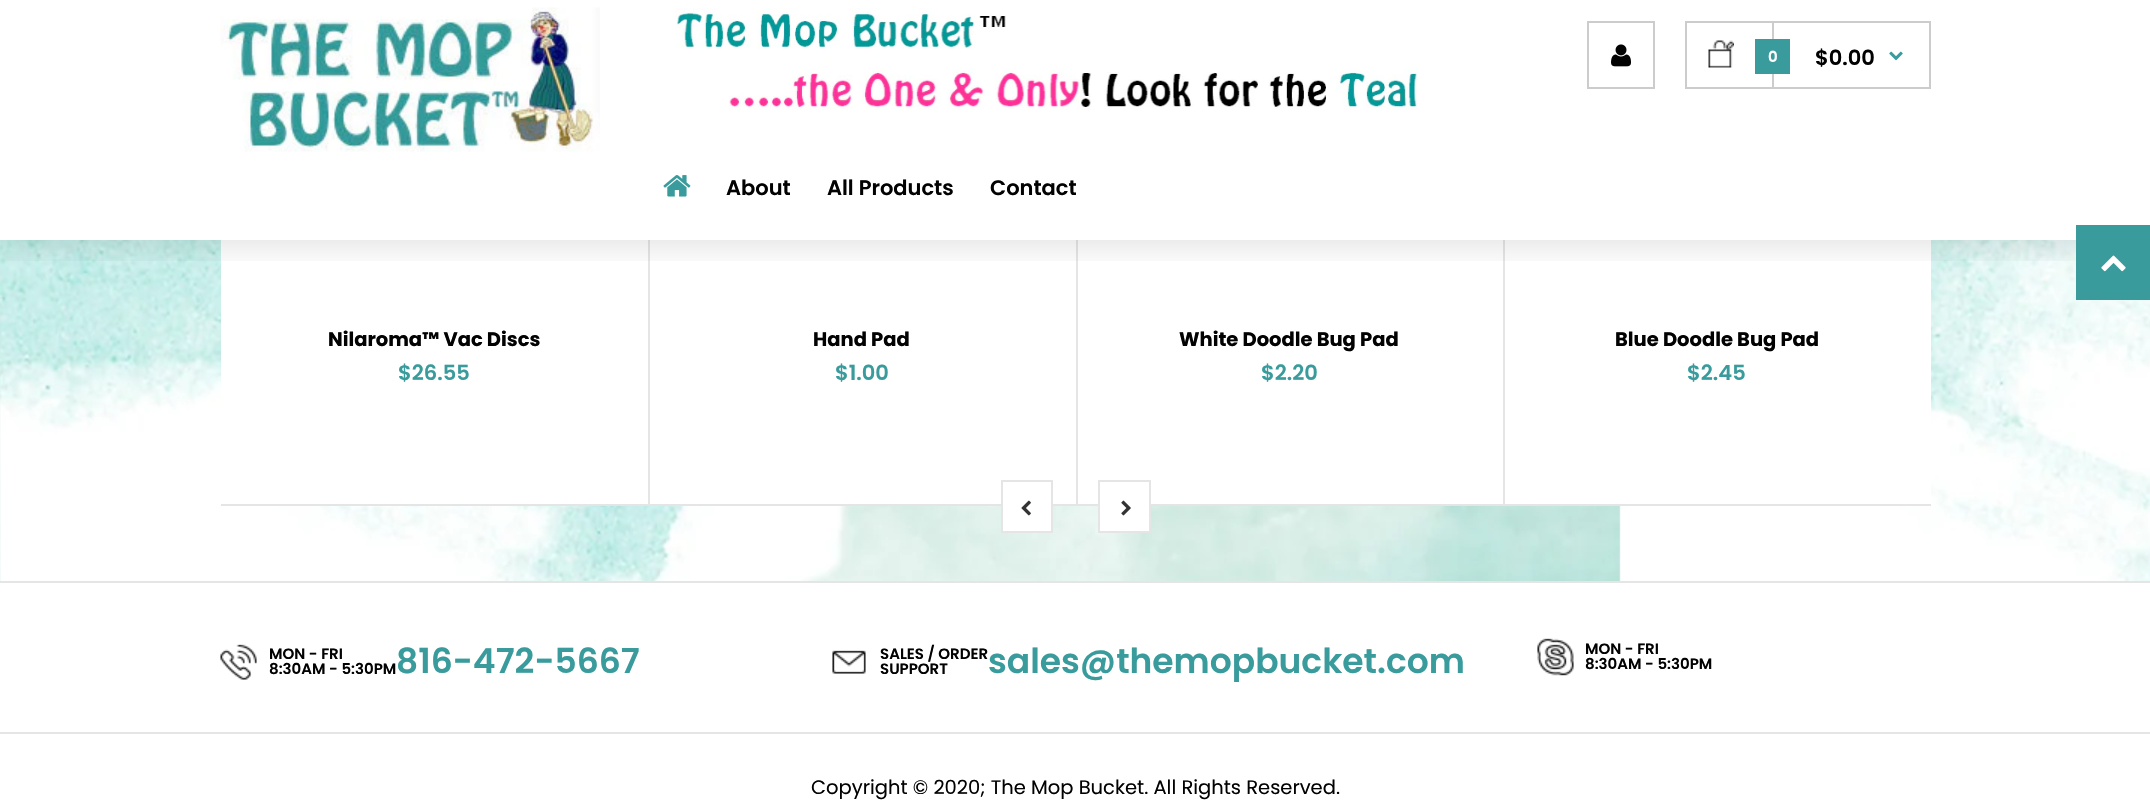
#include "include/core/SkBlurTypes.h"
#include "include/core/SkCanvas.h"
#include "include/core/SkData.h"
#include "include/core/SkFont.h"
#include "include/core/SkFontMgr.h"
#include "include/core/SkImage.h"
#include "include/core/SkMaskFilter.h"
#include "include/core/SkPaint.h"
#include "include/core/SkPathBuilder.h"
#include "include/core/SkTextBlob.h"
#include "include/effects/SkDashPathEffect.h"
#include "include/effects/SkGradientShader.h"
#include "include/utils/SkParsePath.h"

extern sk_sp<SkFontMgr> fontMgr;

static SkFont font(const char* family, int weight, float size, bool italic = false) {
    SkFontStyle style(weight, SkFontStyle::kNormal_Width,
        italic ? SkFontStyle::kItalic_Slant : SkFontStyle::kUpright_Slant);
    SkFont result(fontMgr->matchFamilyStyle(family, style), size);
    result.setSubpixel(true);
    return result;
}

static void drawLabel(SkCanvas* canvas, const char* s, float x, float y, const SkFont& font, SkColor color) {
    SkPaint ink(SkColor4f::FromColor(color));
    ink.setAntiAlias(true);
    canvas->drawString(s, x, y, font, ink);
}

static void fillRect(SkCanvas* canvas, float x, float y, float w, float h, SkColor color) {
    SkPaint ink(SkColor4f::FromColor(color));
    ink.setAntiAlias(true);
    canvas->drawRect(SkRect::MakeXYWH(x, y, w, h), ink);
}

static void drawPhoto(SkCanvas* canvas, const char* path, float x, float y, float w, float h) {
    auto image = SkImages::DeferredFromEncodedData(SkData::MakeFromFileName(path));
    canvas->drawImageRect(image, SkRect::MakeXYWH(x, y, w, h), SkSamplingOptions());
}

void draw(SkCanvas* canvas) {
    SkPaint paint;
    paint.setAntiAlias(true);
    canvas->clear(0xFFFFFFFF);
    drawPhoto(canvas, "assets/img1.png", 0, 240, 2150, 341);
    fillRect(canvas, 221, 240, 1710, 264, 0xFFFFFFFF);
    fillRect(canvas, 221, 504, 1710, 2, 0xFFE5E5E5);
    fillRect(canvas, 648, 240, 2, 266, 0xFFE5E5E5);
    fillRect(canvas, 1076, 240, 2, 266, 0xFFE5E5E5);
    fillRect(canvas, 1503, 240, 2, 266, 0xFFE5E5E5);
    canvas->save();
    canvas->clipRect(SkRect::MakeXYWH(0, 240, 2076, 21));
    paint.setColor(0x26000000);
    paint.setMaskFilter(SkMaskFilter::MakeBlur(kNormal_SkBlurStyle, 19));
    canvas->drawRect(SkRect::MakeXYWH(0, -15, 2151, 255), paint);
    paint.setMaskFilter(nullptr);
    canvas->restore();
    drawPhoto(canvas, "assets/img2.png", 220, 7, 380, 145);
    paint.setStroke(true);
    paint.setStrokeWidth(2);
    paint.setColor(0xFFCCCCCC);
    canvas->drawRect(SkRect::MakeXYWH(1588, 22, 66, 66), paint);
    drawPhoto(canvas, "assets/img3.png", 1611, 44, 20, 23);
    canvas->drawRect(SkRect::MakeXYWH(1686, 22, 244, 66), paint);
    drawPhoto(canvas, "assets/img4.png", 1708, 40, 26, 28);
    fillRect(canvas, 1772, 23, 2, 64, 0xFFCCCCCC);
    fillRect(canvas, 1755, 39, 35, 35, 0xFF399B9C);
    SkFont font1 = font("Poppins", 600, 15);
    drawLabel(canvas, "0", 1768, 62, font1, 0xFFFFFFFF);
    SkFont font2 = font("Poppins", 600, 21);
    drawLabel(canvas, "$0.00", 1815, 65, font2, 0xFF020202);
    drawPhoto(canvas, "assets/img5.png", 1889, 51, 14, 10);
    drawPhoto(canvas, "assets/img6.png", 675, 8, 743, 102);
    drawPhoto(canvas, "assets/img7.png", 663, 175, 28, 22);
    drawLabel(canvas, "About", 726, 195, font2, 0xFF020202);
    drawLabel(canvas, "All Products", 827, 195, font2, 0xFF020202);
    drawLabel(canvas, "Contact", 990, 195, font2, 0xFF020202);
    SkFont font3 = font("Poppins", 700, 19.5f);
    drawLabel(canvas, "Nilaroma™ Vac Discs", 328, 346, font3, 0xFF020202);
    drawLabel(canvas, "$26.55", 398, 380, font2, 0xFF399B9C);
    drawLabel(canvas, "Hand Pad", 813, 346, font3, 0xFF020202);
    drawLabel(canvas, "$1.00", 835, 380, font2, 0xFF399B9C);
    drawLabel(canvas, "White Doodle Bug Pad", 1179, 346, font3, 0xFF020202);
    drawLabel(canvas, "$2.20", 1261, 380, font2, 0xFF399B9C);
    drawLabel(canvas, "Blue Doodle Bug Pad", 1615, 346, font3, 0xFF020202);
    drawLabel(canvas, "$2.45", 1687, 380, font2, 0xFF399B9C);
    fillRect(canvas, 1003, 504, 48, 27, 0xFFFFFFFF);
    paint.setColor(0xFFE5E5E5);
    canvas->drawRect(SkRect::MakeXYWH(1002, 481, 50, 51), paint);
    drawPhoto(canvas, "assets/img8.png", 1021, 500, 10, 16);
    fillRect(canvas, 1100, 504, 49, 27, 0xFFFFFFFF);
    canvas->drawRect(SkRect::MakeXYWH(1099, 481, 51, 51), paint);
    drawPhoto(canvas, "assets/img9.png", 1121, 500, 10, 16);
    fillRect(canvas, 0, 581, 2150, 2, 0xFFE5E5E5);
    drawPhoto(canvas, "assets/img10.png", 220, 644, 37, 36);
    drawLabel(canvas, "MON - FRI", 269, 659, font1, 0xFF020202);
    drawLabel(canvas, "8:30AM - 5:30PM", 269, 674, font1, 0xFF020202);
    SkFont font4 = font("Poppins", 600, 34.5f);
    drawLabel(canvas, "816-472-5667", 396, 673, font4, 0xFF399B9C);
    drawPhoto(canvas, "assets/img11.png", 832, 650, 34, 24);
    drawLabel(canvas, "SALES / ORDER", 880, 659, font1, 0xFF020202);
    drawLabel(canvas, "SUPPORT", 880, 674, font1, 0xFF020202);
    drawLabel(canvas, "sales@themopbucket.com", 988, 673, font4, 0xFF399B9C);
    drawPhoto(canvas, "assets/img12.png", 1537, 638, 37, 38);
    drawLabel(canvas, "MON - FRI", 1585, 654, font1, 0xFF020202);
    drawLabel(canvas, "8:30AM - 5:30PM", 1585, 669, font1, 0xFF020202);
    fillRect(canvas, 0, 732, 2150, 2, 0xFFE5E5E5);
    SkFont font5 = font("Poppins", 400, 19.5f);
    drawLabel(canvas, "Copyright © 2020; The Mop Bucket. All Rights Reserved.", 811, 794, font5, 0xFF020202);
    fillRect(canvas, 2076, 225, 74, 75, 0xFF399B9C);
    drawPhoto(canvas, "assets/img13.png", 2101, 255, 25, 17);
}
